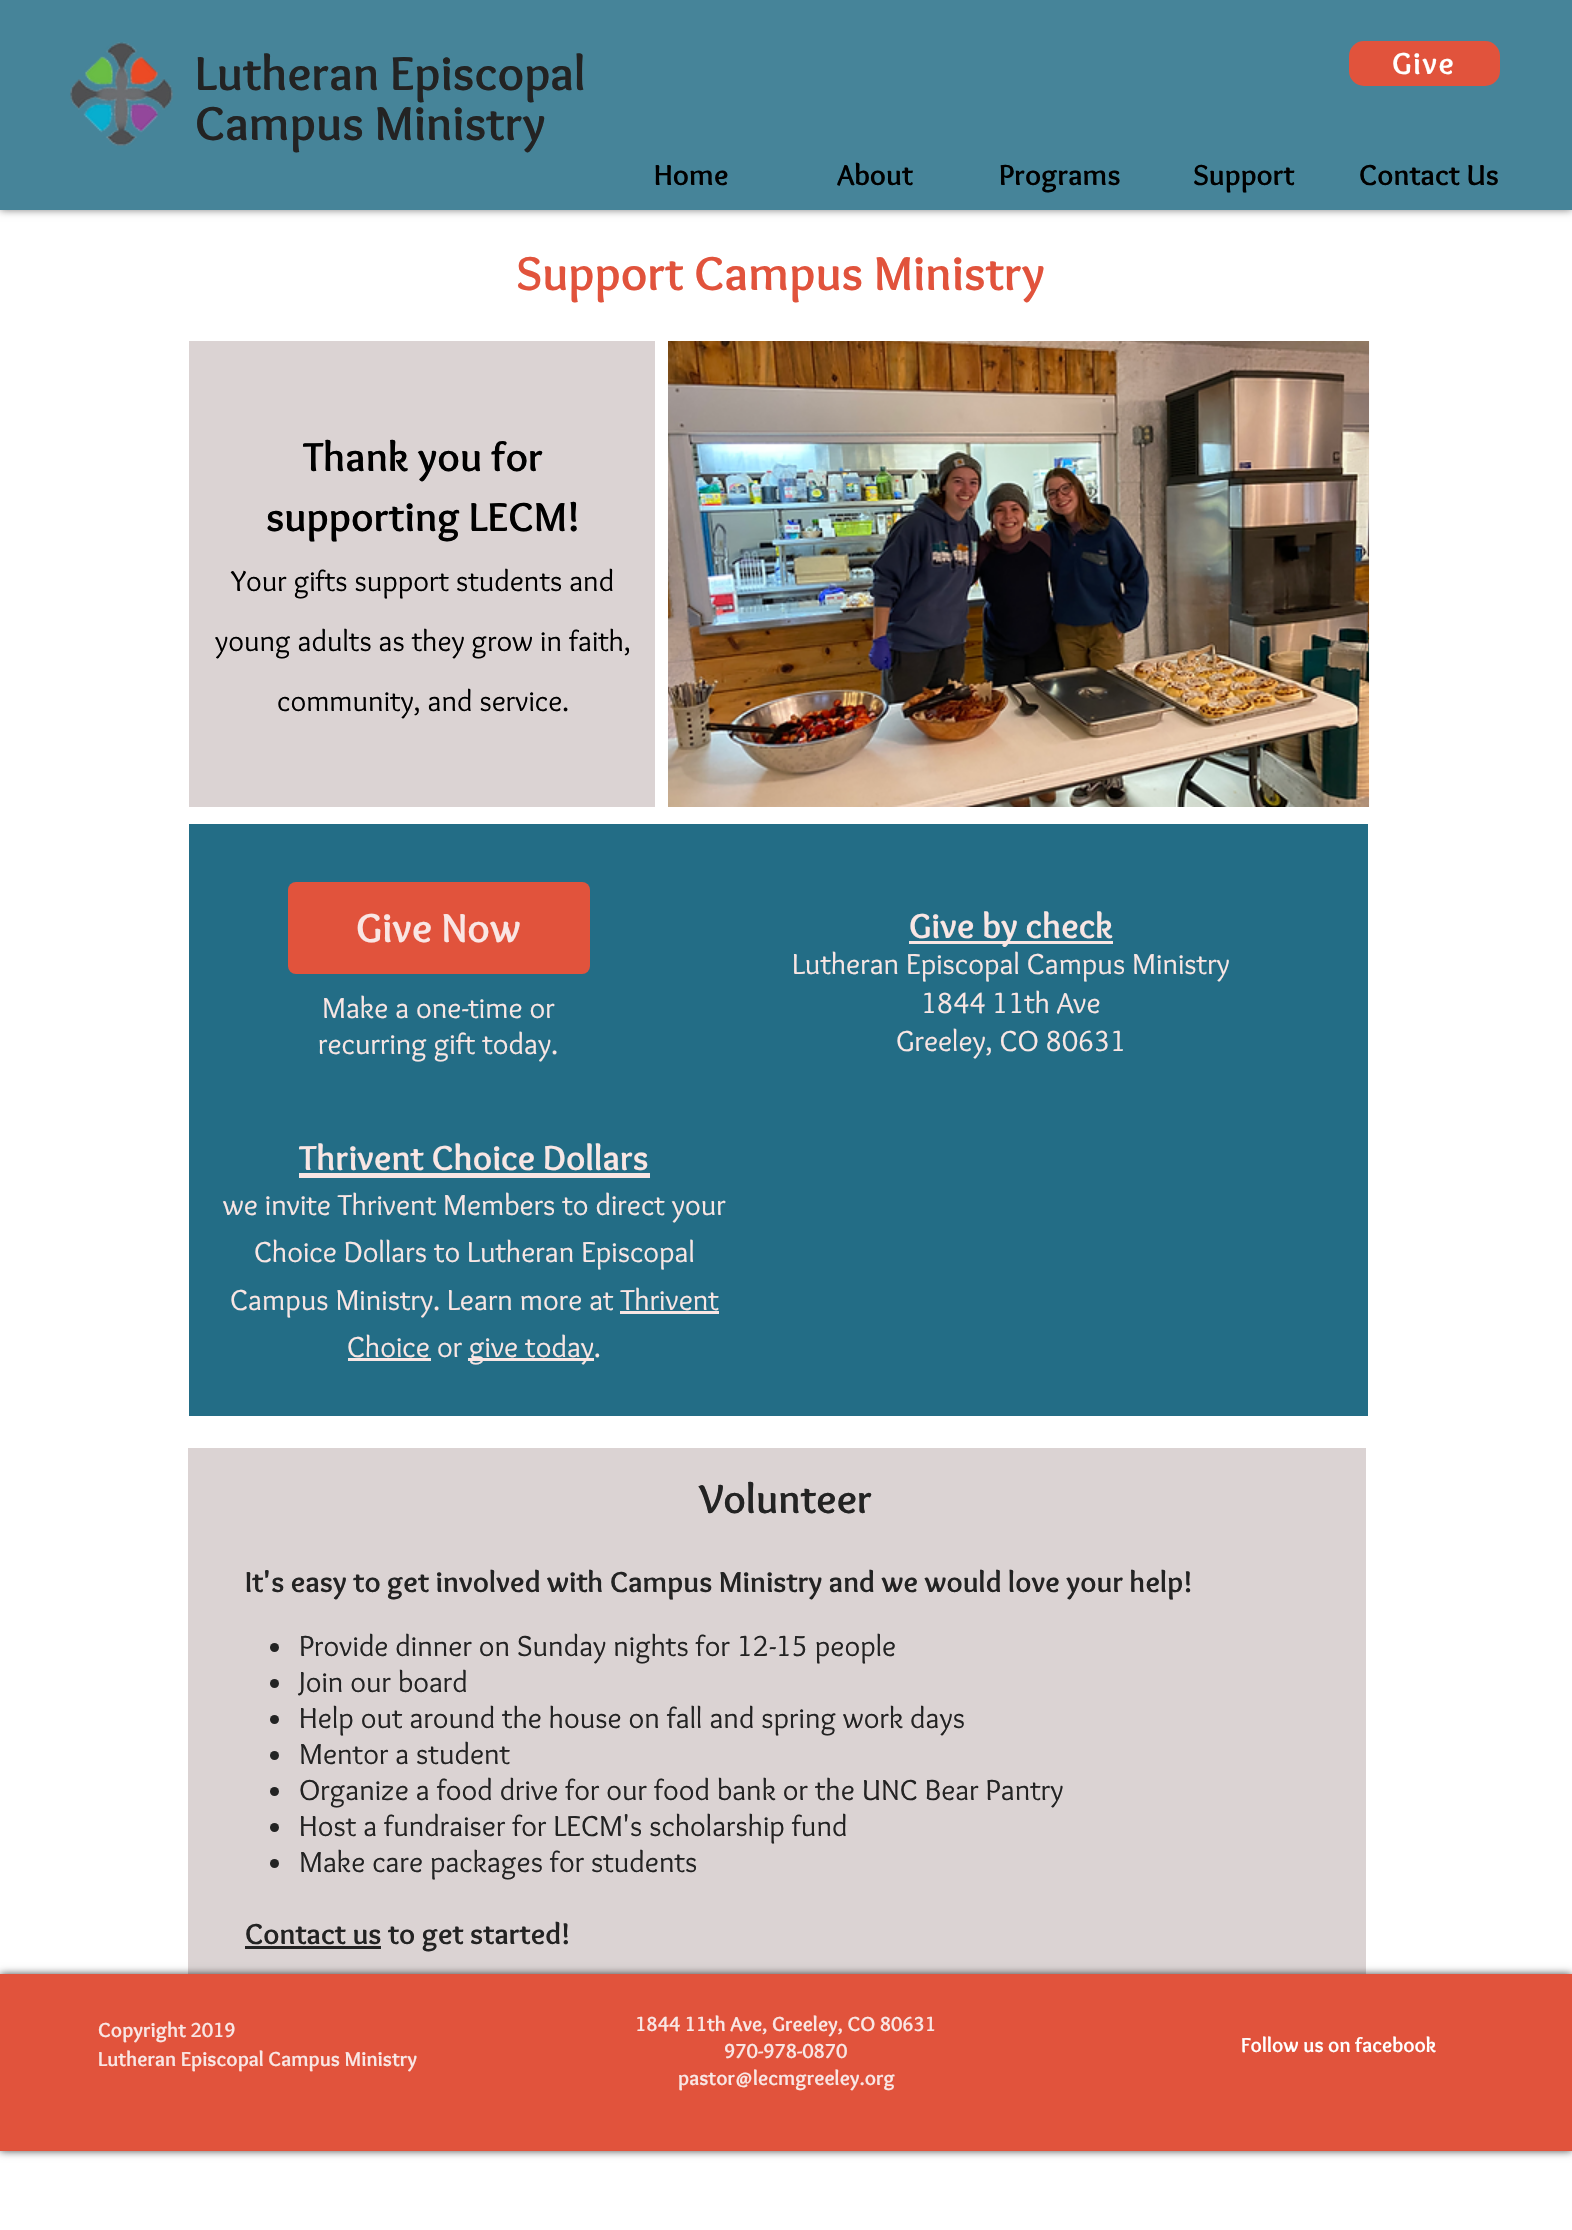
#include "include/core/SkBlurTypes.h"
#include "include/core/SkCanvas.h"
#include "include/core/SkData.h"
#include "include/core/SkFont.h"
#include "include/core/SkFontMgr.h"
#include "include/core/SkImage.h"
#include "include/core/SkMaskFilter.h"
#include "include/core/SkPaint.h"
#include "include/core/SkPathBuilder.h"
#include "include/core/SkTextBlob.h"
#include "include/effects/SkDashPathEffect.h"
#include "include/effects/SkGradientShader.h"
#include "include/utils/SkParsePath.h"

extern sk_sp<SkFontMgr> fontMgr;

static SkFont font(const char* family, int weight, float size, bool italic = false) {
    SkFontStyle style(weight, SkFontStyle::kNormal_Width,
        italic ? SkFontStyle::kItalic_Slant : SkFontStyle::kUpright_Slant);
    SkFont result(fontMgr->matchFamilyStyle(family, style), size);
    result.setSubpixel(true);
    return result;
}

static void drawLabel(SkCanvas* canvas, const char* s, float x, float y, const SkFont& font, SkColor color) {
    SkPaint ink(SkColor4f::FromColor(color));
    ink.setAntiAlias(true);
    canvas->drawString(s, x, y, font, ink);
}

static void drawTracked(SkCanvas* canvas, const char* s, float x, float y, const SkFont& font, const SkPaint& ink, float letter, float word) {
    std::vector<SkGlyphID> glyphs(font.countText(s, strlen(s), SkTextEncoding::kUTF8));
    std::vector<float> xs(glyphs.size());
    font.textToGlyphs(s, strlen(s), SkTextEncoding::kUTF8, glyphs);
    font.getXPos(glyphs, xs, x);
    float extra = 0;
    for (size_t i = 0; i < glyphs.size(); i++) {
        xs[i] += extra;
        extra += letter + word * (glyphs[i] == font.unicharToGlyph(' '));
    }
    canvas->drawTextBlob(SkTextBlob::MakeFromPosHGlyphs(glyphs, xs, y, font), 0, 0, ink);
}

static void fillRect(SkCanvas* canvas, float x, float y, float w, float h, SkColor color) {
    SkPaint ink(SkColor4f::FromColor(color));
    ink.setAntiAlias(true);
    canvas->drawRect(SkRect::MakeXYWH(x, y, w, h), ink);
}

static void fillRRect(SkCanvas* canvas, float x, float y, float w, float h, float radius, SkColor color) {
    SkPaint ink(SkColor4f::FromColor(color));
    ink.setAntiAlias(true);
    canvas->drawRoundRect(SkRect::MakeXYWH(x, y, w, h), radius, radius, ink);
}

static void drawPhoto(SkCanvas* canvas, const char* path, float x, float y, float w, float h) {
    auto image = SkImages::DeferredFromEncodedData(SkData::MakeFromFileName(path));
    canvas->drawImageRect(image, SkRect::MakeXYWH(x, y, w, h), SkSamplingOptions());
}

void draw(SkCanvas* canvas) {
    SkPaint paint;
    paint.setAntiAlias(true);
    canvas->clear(0xFFFFFFFF);
    paint.setColor(0x80000000);
    paint.setMaskFilter(SkMaskFilter::MakeBlur(kNormal_SkBlurStyle, 4));
    canvas->drawRect(SkRect::MakeXYWH(0, 0, 1572, 210), paint);
    paint.setMaskFilter(nullptr);
    fillRect(canvas, 0, 0, 1572, 210, 0xFF468499);
    drawPhoto(canvas, "assets/img1.png", 70, 42, 103, 104);
    SkFont font1 = font("Overlock", 700, 49.5f);
    drawLabel(canvas, "Lutheran Episcopal", 195, 90, font1, 0xFF232323);
    drawLabel(canvas, "Campus Ministry", 195, 140, font1, 0xFF232323);
    fillRRect(canvas, 1349, 41, 151, 45, 15, 0xFFE1533C);
    SkFont font2 = font("Overlock", 700, 31.5f);
    paint.setColor(0xFFFFFFFF);
    drawTracked(canvas, "Give", 1392, 74, font2, paint, 1.5f, 0);
    SkFont font3 = font("Overlock", 700, 30);
    drawLabel(canvas, "Home", 654, 185, font3, 0xFF000000);
    drawLabel(canvas, "About", 837, 185, font3, 0xFF000000);
    drawLabel(canvas, "Programs", 999, 185, font3, 0xFF000000);
    drawLabel(canvas, "Support", 1193, 185, font3, 0xFF000000);
    drawLabel(canvas, "Contact Us", 1359, 185, font3, 0xFF000000);
    drawLabel(canvas, "Support Campus Ministry", 516, 290, font1, 0xFFE1533C);
    fillRect(canvas, 189, 341, 466, 466, 0xFFDBD3D3);
    drawPhoto(canvas, "assets/img2.png", 668, 341, 702, 466);
    SkFont font4 = font("Overlock", 700, 42);
    drawLabel(canvas, "Thank you for", 303, 471, font4, 0xFF000000);
    drawLabel(canvas, "supporting LECM!", 266, 531, font4, 0xFF000000);
    SkFont font5 = font("Overlock", 400, 30);
    drawLabel(canvas, "Your gifts support students and", 231, 591, font5, 0xFF000000);
    drawLabel(canvas, "young adults as they grow in faith,", 215, 651, font5, 0xFF000000);
    drawLabel(canvas, "community, and service.", 277, 711, font5, 0xFF000000);
    fillRect(canvas, 189, 824, 1179, 592, 0xFF236D86);
    fillRRect(canvas, 288, 882, 302, 92, 8, 0xFFE1533C);
    drawLabel(canvas, "Give Now", 356, 942, font4, 0xFFF9E6E4);
    fillRect(canvas, 909, 941, 204, 3, 0xFFF9E6E4);
    SkFont font6 = font("Overlock", 700, 36);
    drawLabel(canvas, "Give by check", 909, 938, font6, 0xFFF9E6E4);
    drawLabel(canvas, "Lutheran Episcopal Campus Ministry", 792, 974, font5, 0xFFF9E6E4);
    drawLabel(canvas, "1844 11th Ave", 921, 1013, font5, 0xFFF9E6E4);
    drawLabel(canvas, "Greeley, CO 80631", 896, 1051, font5, 0xFFF9E6E4);
    drawLabel(canvas, "Make a one-time or", 322, 1018, font5, 0xFFF9E6E4);
    drawLabel(canvas, "recurring gift today.", 318, 1054, font5, 0xFFF9E6E4);
    drawLabel(canvas, "Thrivent Choice Dollars", 299, 1170, font6, 0xFFF9E6E4);
    fillRect(canvas, 299, 1173, 351, 5, 0xFFF9E6E4);
    drawLabel(canvas, "we invite Thrivent Members to direct your", 223, 1215, font5, 0xFFF9E6E4);
    drawLabel(canvas, "Choice Dollars to Lutheran Episcopal", 254, 1262, font5, 0xFFF9E6E4);
    drawLabel(canvas, "Campus Ministry. Learn more at Thrivent", 230, 1310, font5, 0xFFF9E6E4);
    fillRect(canvas, 620, 1311, 99, 3, 0xFFF9E6E4);
    drawLabel(canvas, "Choice", 347, 1357, font5, 0xFFF9E6E4);
    drawLabel(canvas, "or", 437, 1357, font5, 0xFFF9E6E4);
    fillRect(canvas, 348, 1358, 83, 3, 0xFFF9E6E4);
    fillRect(canvas, 468, 1358, 126, 3, 0xFFF9E6E4);
    drawLabel(canvas, "give today.", 469, 1357, font5, 0xFFF9E6E4);
    fillRect(canvas, 188, 1448, 1178, 526, 0xFFDBD3D3);
    drawLabel(canvas, "Volunteer", 699, 1513, font4, 0xFF232323);
    drawLabel(canvas, "It's easy to get involved with Campus Ministry and we would love your help!", 245, 1592, font3, 0xFF232323);
    paint.setColor(0xFF232323);
    canvas->drawCircle(274.5f, 1647.5f, 4.5f, paint);
    drawLabel(canvas, "Provide dinner on Sunday nights for 12-15 people", 299, 1656, font5, 0xFF232323);
    canvas->drawCircle(274.5f, 1683.5f, 4.5f, paint);
    drawLabel(canvas, "Join our board", 299, 1692, font5, 0xFF232323);
    canvas->drawCircle(274.5f, 1719.5f, 4.5f, paint);
    drawLabel(canvas, "Help out around the house on fall and spring work days", 299, 1728, font5, 0xFF232323);
    canvas->drawCircle(274.5f, 1755.5f, 4.5f, paint);
    drawLabel(canvas, "Mentor a student", 299, 1764, font5, 0xFF232323);
    canvas->drawCircle(274.5f, 1791.5f, 4.5f, paint);
    drawLabel(canvas, "Organize a food drive for our food bank or the UNC Bear Pantry", 299, 1800, font5, 0xFF232323);
    canvas->drawCircle(274.5f, 1827.5f, 4.5f, paint);
    drawLabel(canvas, "Host a fundraiser for LECM's scholarship fund", 299, 1836, font5, 0xFF232323);
    canvas->drawCircle(274.5f, 1863.5f, 4.5f, paint);
    drawLabel(canvas, "Make care packages for students", 299, 1872, font5, 0xFF232323);
    fillRect(canvas, 245, 1946, 136, 3, 0xFF232323);
    drawLabel(canvas, "Contact us to get started!", 245, 1944, font3, 0xFF232323);
    paint.setColor(0xB3000000);
    paint.setMaskFilter(SkMaskFilter::MakeBlur(kNormal_SkBlurStyle, 4));
    canvas->drawRect(SkRect::MakeXYWH(0, 1974, 1572, 177), paint);
    paint.setMaskFilter(nullptr);
    fillRect(canvas, 0, 1974, 1572, 177, 0xFFE1533C);
    SkFont font7 = font("Overlock", 700, 21);
    drawLabel(canvas, "Copyright 2019", 98, 2037, font7, 0xFFF9E6E4);
    drawLabel(canvas, "Lutheran Episcopal Campus Ministry", 98, 2066, font7, 0xFFF9E6E4);
    drawLabel(canvas, "1844 11th Ave, Greeley, CO 80631", 635, 2031, font7, 0xFFF9E6E4);
    drawLabel(canvas, "970-978-0870", 724, 2058, font7, 0xFFF9E6E4);
    drawLabel(canvas, "pastor@lecmgreeley.org", 678, 2085, font7, 0xFFF9E6E4);
    drawLabel(canvas, "Follow us on facebook", 1241, 2052, font7, 0xFFFFFFFF);
}
